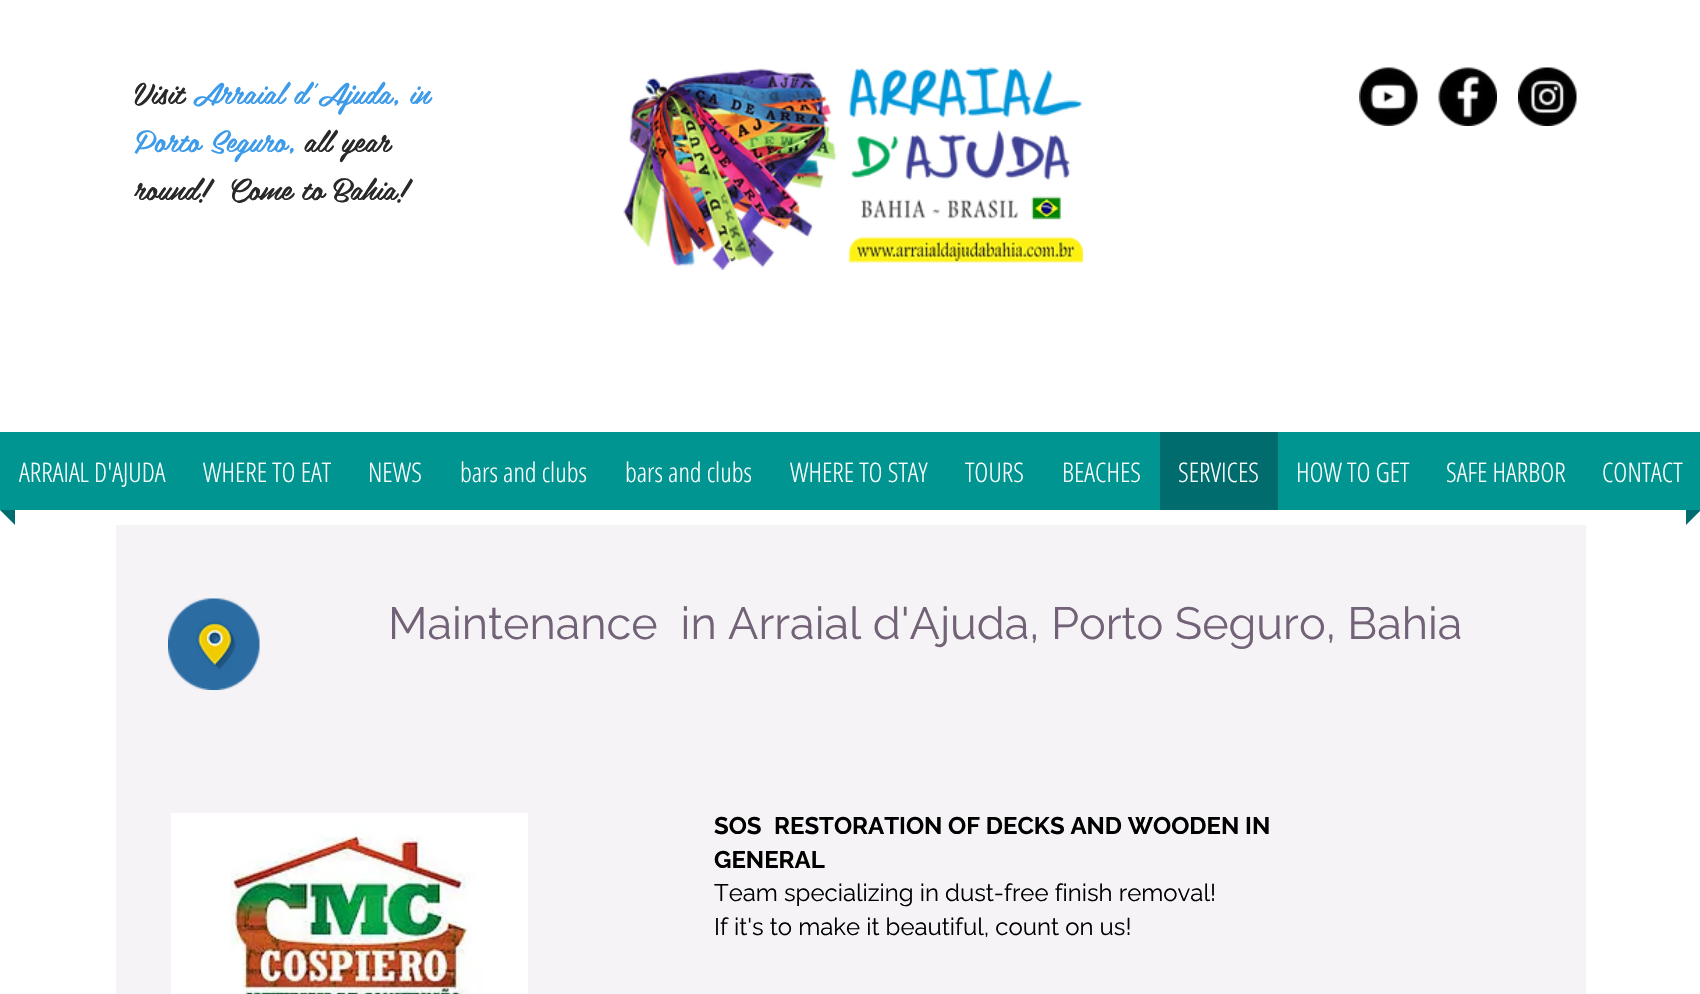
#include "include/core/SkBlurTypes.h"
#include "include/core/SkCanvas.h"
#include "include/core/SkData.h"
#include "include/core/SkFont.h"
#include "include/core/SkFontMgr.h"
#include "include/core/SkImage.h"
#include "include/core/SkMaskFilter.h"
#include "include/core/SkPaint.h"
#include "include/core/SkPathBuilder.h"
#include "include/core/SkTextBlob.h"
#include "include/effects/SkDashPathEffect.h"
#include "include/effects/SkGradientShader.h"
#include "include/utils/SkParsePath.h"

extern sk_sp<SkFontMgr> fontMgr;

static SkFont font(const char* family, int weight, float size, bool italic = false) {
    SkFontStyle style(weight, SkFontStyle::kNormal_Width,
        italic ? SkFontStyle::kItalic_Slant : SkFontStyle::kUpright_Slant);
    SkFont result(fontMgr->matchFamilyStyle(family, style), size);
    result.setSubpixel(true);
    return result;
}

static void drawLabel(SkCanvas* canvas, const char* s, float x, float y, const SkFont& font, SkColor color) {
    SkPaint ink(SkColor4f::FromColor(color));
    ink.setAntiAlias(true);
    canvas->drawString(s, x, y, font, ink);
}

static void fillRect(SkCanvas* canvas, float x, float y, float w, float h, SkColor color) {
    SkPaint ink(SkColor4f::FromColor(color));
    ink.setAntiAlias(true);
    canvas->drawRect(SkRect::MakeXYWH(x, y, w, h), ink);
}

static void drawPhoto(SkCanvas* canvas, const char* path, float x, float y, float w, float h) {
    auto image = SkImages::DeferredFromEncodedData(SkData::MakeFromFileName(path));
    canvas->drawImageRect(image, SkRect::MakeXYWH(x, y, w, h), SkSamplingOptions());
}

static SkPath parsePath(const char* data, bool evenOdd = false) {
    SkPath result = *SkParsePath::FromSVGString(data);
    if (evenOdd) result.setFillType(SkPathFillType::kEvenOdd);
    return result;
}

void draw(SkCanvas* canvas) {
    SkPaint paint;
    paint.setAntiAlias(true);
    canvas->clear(0xFFFFFFFF);
    SkFont font1 = font("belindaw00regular", 400, 30);
    drawLabel(canvas, "Visit", 134, 104, font1, 0xFF292929);
    drawLabel(canvas, "Arraial d'Ajuda, in", 193, 104, font1, 0xFF3D9BE9);
    drawLabel(canvas, "Porto Seguro,", 134, 152, font1, 0xFF3D9BE9);
    drawLabel(canvas, "all year", 304, 152, font1, 0xFF292929);
    drawLabel(canvas, "round!", 134, 200, font1, 0xFF292929);
    drawLabel(canvas, "Come to Bahia!", 228, 200, font1, 0xFF292929);
    drawPhoto(canvas, "assets/img1.png", 623, 67, 460, 203);
    drawPhoto(canvas, "assets/img2.png", 1359, 67, 59, 59);
    drawPhoto(canvas, "assets/img3.png", 1438, 67, 59, 59);
    drawPhoto(canvas, "assets/img4.png", 1518, 67, 59, 59);
    fillRect(canvas, 0, 432, 1700, 78, 0xFF009591);
    SkFont font2 = font("Open Sans Condensed", 300, 27);
    drawLabel(canvas, "ARRAIAL D'AJUDA", 19, 482, font2, 0xFFFFFFFF);
    drawLabel(canvas, "WHERE TO EAT", 203, 482, font2, 0xFFFFFFFF);
    drawLabel(canvas, "NEWS", 368, 482, font2, 0xFFFFFFFF);
    drawLabel(canvas, "bars and clubs", 460, 482, font2, 0xFFFFFFFF);
    drawLabel(canvas, "bars and clubs", 625, 482, font2, 0xFFFFFFFF);
    drawLabel(canvas, "WHERE TO STAY", 790, 482, font2, 0xFFFFFFFF);
    drawLabel(canvas, "TOURS", 965, 482, font2, 0xFFFFFFFF);
    drawLabel(canvas, "BEACHES", 1062, 482, font2, 0xFFFFFFFF);
    fillRect(canvas, 1160, 432, 118, 78, 0xFF006C6D);
    drawLabel(canvas, "SERVICES", 1178, 482, font2, 0xFFFFFFFF);
    drawLabel(canvas, "HOW TO GET", 1296, 482, font2, 0xFFFFFFFF);
    drawLabel(canvas, "SAFE HARBOR", 1446, 482, font2, 0xFFFFFFFF);
    drawLabel(canvas, "CONTACT", 1602, 482, font2, 0xFFFFFFFF);
    paint.setColor(0xFF006C6D);
    canvas->drawPath(parsePath("M0 510H15V525Z"), paint);
    canvas->drawPath(parsePath("M1686 510H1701L1686 525Z"), paint);
    fillRect(canvas, 116, 525, 1470, 469, 0xFFF5F3F6);
    drawPhoto(canvas, "assets/img5.png", 168, 598, 92, 92);
    SkFont font3 = font("Raleway", 400, 45);
    drawLabel(canvas, "Maintenance  in Arraial d'Ajuda, Porto Seguro, Bahia", 388, 639, font3, 0xFF726277);
    drawPhoto(canvas, "assets/img6.png", 171, 813, 357, 181);
    SkFont font4 = font("Raleway", 700, 24);
    drawLabel(canvas, "SOS", 714, 834, font4, 0xFF000000);
    drawLabel(canvas, "RESTORATION OF DECKS AND WOODEN IN", 774, 834, font4, 0xFF000000);
    drawLabel(canvas, "GENERAL", 714, 868, font4, 0xFF000000);
    SkFont font5 = font("Raleway", 400, 24);
    drawLabel(canvas, "Team specializing in dust-free finish removal!", 714, 901, font5, 0xFF000000);
    drawLabel(canvas, "If it's to make it beautiful, count on us!", 714, 935, font5, 0xFF000000);
}
